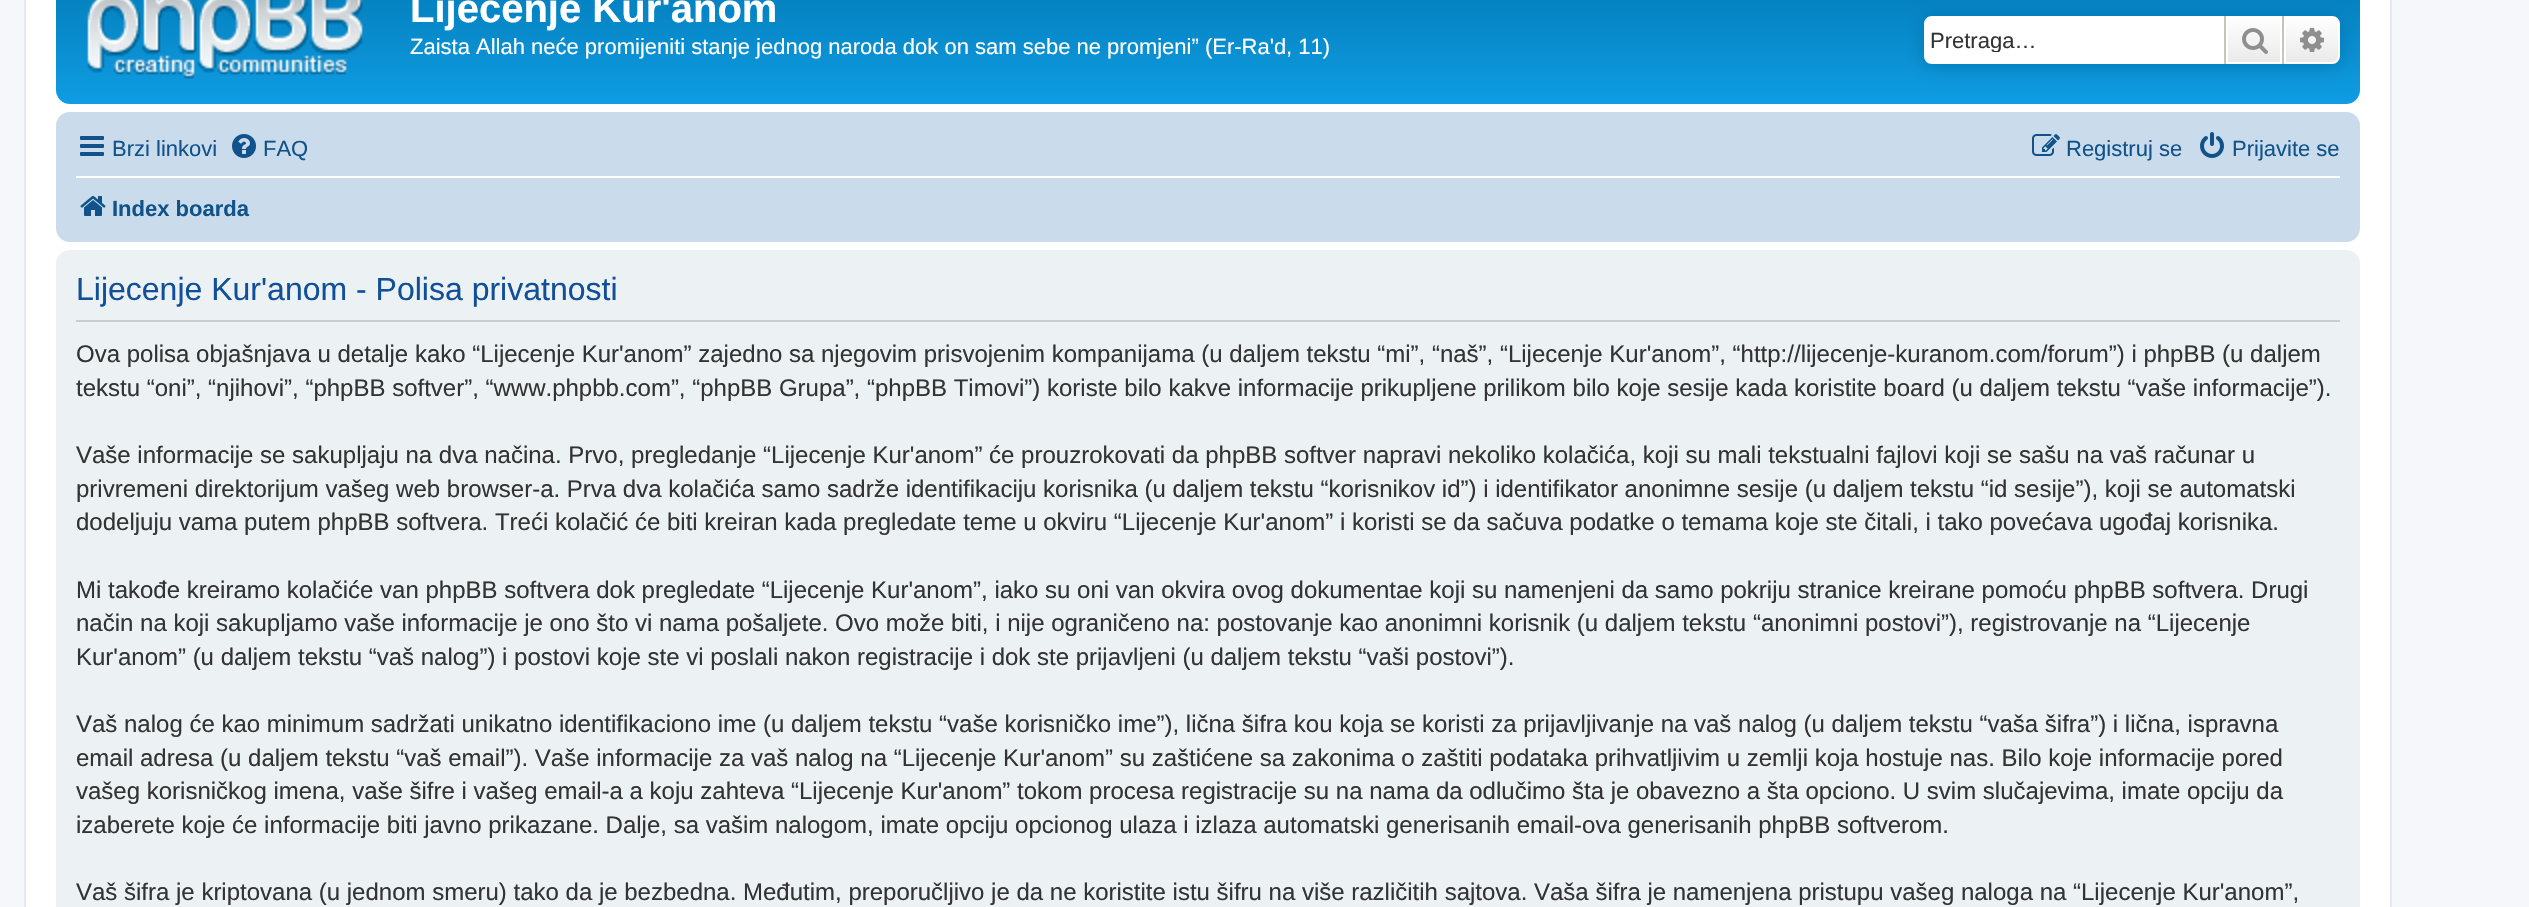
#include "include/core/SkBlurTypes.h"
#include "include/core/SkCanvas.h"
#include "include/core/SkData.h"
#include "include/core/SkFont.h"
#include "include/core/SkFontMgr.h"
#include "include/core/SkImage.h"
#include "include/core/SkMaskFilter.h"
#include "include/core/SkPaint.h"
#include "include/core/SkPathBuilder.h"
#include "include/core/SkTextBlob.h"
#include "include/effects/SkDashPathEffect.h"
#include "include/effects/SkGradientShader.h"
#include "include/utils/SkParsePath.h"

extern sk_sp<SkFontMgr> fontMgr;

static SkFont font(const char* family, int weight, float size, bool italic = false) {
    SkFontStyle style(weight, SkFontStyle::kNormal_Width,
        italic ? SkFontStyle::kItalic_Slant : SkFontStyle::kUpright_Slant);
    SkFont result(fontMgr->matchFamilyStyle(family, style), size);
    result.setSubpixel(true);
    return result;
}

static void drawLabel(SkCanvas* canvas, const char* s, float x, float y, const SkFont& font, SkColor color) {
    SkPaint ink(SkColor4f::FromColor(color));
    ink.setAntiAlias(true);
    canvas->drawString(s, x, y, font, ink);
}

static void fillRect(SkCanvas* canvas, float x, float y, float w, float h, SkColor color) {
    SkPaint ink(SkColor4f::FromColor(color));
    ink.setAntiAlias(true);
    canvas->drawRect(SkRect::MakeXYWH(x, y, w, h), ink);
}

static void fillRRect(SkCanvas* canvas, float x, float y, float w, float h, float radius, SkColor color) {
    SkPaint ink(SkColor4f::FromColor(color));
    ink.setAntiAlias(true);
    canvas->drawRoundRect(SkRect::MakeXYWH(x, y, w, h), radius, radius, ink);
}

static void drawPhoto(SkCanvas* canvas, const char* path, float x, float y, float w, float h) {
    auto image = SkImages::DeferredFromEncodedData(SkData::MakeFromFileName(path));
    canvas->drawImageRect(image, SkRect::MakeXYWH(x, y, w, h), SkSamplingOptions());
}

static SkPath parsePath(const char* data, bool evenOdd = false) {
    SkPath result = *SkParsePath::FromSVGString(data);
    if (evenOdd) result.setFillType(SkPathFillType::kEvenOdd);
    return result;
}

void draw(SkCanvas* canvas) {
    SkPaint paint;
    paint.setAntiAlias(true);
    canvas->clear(0xFFF5F7FA);
    paint.setColor(0xFFFFFFFF);
    canvas->drawRect(SkRect::MakeXYWH(25, -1, 2366, 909), paint);
    paint.setStroke(true);
    paint.setStrokeWidth(2);
    paint.setColor(0xFFE6E9ED);
    canvas->drawRect(SkRect::MakeXYWH(25, -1, 2366, 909), paint);
    paint.setStroke(false);
    {
        const SkColor colors[] = {0xFF6ACEFF, 0xFF0076B1, 0xFF12A3EB};
        const float stops[] = {0, 0.02f, 1};
        const SkPoint ends[] = {{1208, -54}, {1208, 130}};
        paint.setShader(SkGradientShader::MakeLinear(ends, colors, stops, 3, SkTileMode::kClamp));
        paint.setAlpha(255);
    }
    canvas->drawRoundRect(SkRect::MakeXYWH(56, -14, 2304, 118), 14, 14, paint);
    drawPhoto(canvas, "assets/img1.png", 87, 0, 276, 79);
    SkFont font1 = font("Liberation Sans", 700, 40);
    drawLabel(canvas, "Lijecenje Kur'anom", 410, 22, font1, 0xFFFFFFFF);
    SkFont font2 = font("Liberation Sans", 400, 22);
    drawLabel(canvas, "Zaista Allah neće promijeniti stanje jednog naroda dok on sam sebe ne promjeni” (Er-Ra'd, 11)", 410, 54, font2, 0xFFFFFFFF);
    paint.setShader(nullptr);
    paint.setColor(0xFF0075B0);
    paint.setMaskFilter(SkMaskFilter::MakeBlur(kNormal_SkBlurStyle, 10));
    canvas->drawRoundRect(SkRect::MakeXYWH(1924, 16, 416, 48), 8, 8, paint);
    paint.setMaskFilter(nullptr);
    paint.setColor(0xFFFFFFFF);
    canvas->drawPath(parsePath("M1932 16H2224V64H1932C1927.5 64 1924 60.5 1924 56V24C1924 19.5 1927.5 16 1932 16Z"), paint);
    canvas->save();
    canvas->clipRect(SkRect::MakeXYWH(1930, 28, 280, 24));
    drawLabel(canvas, "Pretraga…", 1930, 48, font2, 0xFF333333);
    canvas->restore();
    {
        const SkColor colors[] = {0xFFFFFFFF, 0xFFE9E9E9};
        const float stops[] = {0, 1};
        const SkPoint ends[] = {{2254, 16}, {2254, 64}};
        paint.setShader(SkGradientShader::MakeLinear(ends, colors, stops, 2, SkTileMode::kClamp));
        paint.setAlpha(255);
    }
    canvas->drawRect(SkRect::MakeXYWH(2228, 18, 52, 44), paint);
    paint.setStroke(true);
    paint.setShader(nullptr);
    paint.setColor(0xFFFFFFFF);
    canvas->drawRect(SkRect::MakeXYWH(2227, 17, 54, 46), paint);
    fillRect(canvas, 2282, 16, 2, 48, 0xFFC7C3BF);
    fillRect(canvas, 2224, 16, 2, 48, 0xFFC7C3BF);
    drawPhoto(canvas, "assets/img2.png", 2242, 28, 26, 26);
    paint.setStroke(false);
    {
        const SkColor colors[] = {0xFFFFFFFF, 0xFFE9E9E9};
        const float stops[] = {0, 1};
        const SkPoint ends[] = {{2312, 16}, {2312, 64}};
        paint.setShader(SkGradientShader::MakeLinear(ends, colors, stops, 2, SkTileMode::kClamp));
        paint.setAlpha(255);
    }
    canvas->drawPath(parsePath("M2285 17H2332C2336 17 2339 20 2339 24V56C2339 60 2336 63 2332 63H2285Z"), paint);
    paint.setStroke(true);
    paint.setShader(nullptr);
    paint.setColor(0xFFFFFFFF);
    canvas->drawPath(parsePath("M2285 17H2332C2336 17 2339 20 2339 24V56C2339 60 2336 63 2332 63H2285Z"), paint);
    drawPhoto(canvas, "assets/img3.png", 2300, 28, 24, 24);
    fillRRect(canvas, 56, 112, 2304, 130, 14, 0xFFCADCEB);
    drawPhoto(canvas, "assets/img4.png", 80, 136, 24, 20);
    drawLabel(canvas, "Brzi linkovi", 112, 156, font2, 0xFF105289);
    drawPhoto(canvas, "assets/img5.png", 232, 134, 24, 24);
    drawLabel(canvas, "FAQ", 263, 156, font2, 0xFF105289);
    drawPhoto(canvas, "assets/img6.png", 2032, 134, 28, 22);
    drawLabel(canvas, "Registruj se", 2066, 156, font2, 0xFF105289);
    drawPhoto(canvas, "assets/img7.png", 2200, 132, 24, 26);
    drawLabel(canvas, "Prijavite se", 2232, 156, font2, 0xFF105289);
    fillRect(canvas, 76, 176, 2264, 2, 0xFFFFFFFF);
    drawPhoto(canvas, "assets/img8.png", 80, 196, 26, 20);
    SkFont font3 = font("Liberation Sans", 700, 22);
    drawLabel(canvas, "Index boarda", 112, 216, font3, 0xFF105289);
    fillRRect(canvas, 56, 250, 2304, 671, 14, 0xFFECF1F3);
    fillRect(canvas, 76, 320, 2264, 2, 0xFFCCCCCC);
    SkFont font4 = font("Liberation Sans", 400, 32);
    drawLabel(canvas, "Lijecenje Kur'anom - Polisa privatnosti", 76, 300, font4, 0xFF115098);
    SkFont font5 = font("Liberation Sans", 400, 24);
    drawLabel(canvas, "Ova polisa objašnjava u detalje kako “Lijecenje Kur'anom” zajedno sa njegovim prisvojenim kompanijama (u daljem tekstu “mi”, “naš”, “Lijecenje Kur'anom”, “http://lijecenje-kuranom.com/forum”) i phpBB (u daljem", 76, 362, font5, 0xFF333333);
    drawLabel(canvas, "tekstu “oni”, “njihovi”, “phpBB softver”, “www.phpbb.com”, “phpBB Grupa”, “phpBB Timovi”) koriste bilo kakve informacije prikupljene prilikom bilo koje sesije kada koristite board (u daljem tekstu “vaše informacije”).", 76, 396, font5, 0xFF333333);
    drawLabel(canvas, "Vaše informacije se sakupljaju na dva načina. Prvo, pregledanje “Lijecenje Kur'anom” će prouzrokovati da phpBB softver napravi nekoliko kolačića, koji su mali tekstualni fajlovi koji se sašu na vaš računar u", 76, 463, font5, 0xFF333333);
    drawLabel(canvas, "privremeni direktorijum vašeg web browser-a. Prva dva kolačića samo sadrže identifikaciju korisnika (u daljem tekstu “korisnikov id”) i identifikator anonimne sesije (u daljem tekstu “id sesije”), koji se automatski", 76, 497, font5, 0xFF333333);
    drawLabel(canvas, "dodeljuju vama putem phpBB softvera. Treći kolačić će biti kreiran kada pregledate teme u okviru “Lijecenje Kur'anom” i koristi se da sačuva podatke o temama koje ste čitali, i tako povećava ugođaj korisnika.", 76, 530, font5, 0xFF333333);
    drawLabel(canvas, "Mi takođe kreiramo kolačiće van phpBB softvera dok pregledate “Lijecenje Kur'anom”, iako su oni van okvira ovog dokumentae koji su namenjeni da samo pokriju stranice kreirane pomoću phpBB softvera. Drugi", 76, 598, font5, 0xFF333333);
    drawLabel(canvas, "način na koji sakupljamo vaše informacije je ono što vi nama pošaljete. Ovo može biti, i nije ograničeno na: postovanje kao anonimni korisnik (u daljem tekstu “anonimni postovi”), registrovanje na “Lijecenje", 76, 631, font5, 0xFF333333);
    drawLabel(canvas, "Kur'anom” (u daljem tekstu “vaš nalog”) i postovi koje ste vi poslali nakon registracije i dok ste prijavljeni (u daljem tekstu “vaši postovi”).", 76, 665, font5, 0xFF333333);
    drawLabel(canvas, "Vaš nalog će kao minimum sadržati unikatno identifikaciono ime (u daljem tekstu “vaše korisničko ime”), lična šifra kou koja se koristi za prijavljivanje na vaš nalog (u daljem tekstu “vaša šifra”) i lična, ispravna", 76, 732, font5, 0xFF333333);
    drawLabel(canvas, "email adresa (u daljem tekstu “vaš email”). Vaše informacije za vaš nalog na “Lijecenje Kur'anom” su zaštićene sa zakonima o zaštiti podataka prihvatljivim u zemlji koja hostuje nas. Bilo koje informacije pored", 76, 766, font5, 0xFF333333);
    drawLabel(canvas, "vašeg korisničkog imena, vaše šifre i vašeg email-a a koju zahteva “Lijecenje Kur'anom” tokom procesa registracije su na nama da odlučimo šta je obavezno a šta opciono. U svim slučajevima, imate opciju da", 76, 799, font5, 0xFF333333);
    drawLabel(canvas, "izaberete koje će informacije biti javno prikazane. Dalje, sa vašim nalogom, imate opciju opcionog ulaza i izlaza automatski generisanih email-ova generisanih phpBB softverom.", 76, 833, font5, 0xFF333333);
    drawLabel(canvas, "Vaš šifra je kriptovana (u jednom smeru) tako da je bezbedna. Međutim, preporučljivo je da ne koristite istu šifru na više različitih sajtova. Vaša šifra je namenjena pristupu vašeg naloga na “Lijecenje Kur'anom”,", 76, 900, font5, 0xFF333333);
}
